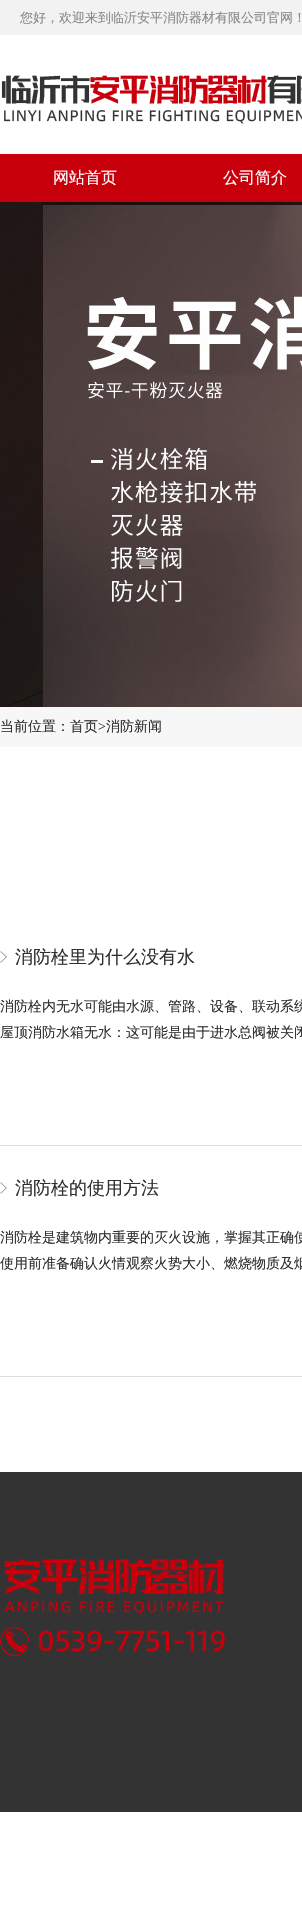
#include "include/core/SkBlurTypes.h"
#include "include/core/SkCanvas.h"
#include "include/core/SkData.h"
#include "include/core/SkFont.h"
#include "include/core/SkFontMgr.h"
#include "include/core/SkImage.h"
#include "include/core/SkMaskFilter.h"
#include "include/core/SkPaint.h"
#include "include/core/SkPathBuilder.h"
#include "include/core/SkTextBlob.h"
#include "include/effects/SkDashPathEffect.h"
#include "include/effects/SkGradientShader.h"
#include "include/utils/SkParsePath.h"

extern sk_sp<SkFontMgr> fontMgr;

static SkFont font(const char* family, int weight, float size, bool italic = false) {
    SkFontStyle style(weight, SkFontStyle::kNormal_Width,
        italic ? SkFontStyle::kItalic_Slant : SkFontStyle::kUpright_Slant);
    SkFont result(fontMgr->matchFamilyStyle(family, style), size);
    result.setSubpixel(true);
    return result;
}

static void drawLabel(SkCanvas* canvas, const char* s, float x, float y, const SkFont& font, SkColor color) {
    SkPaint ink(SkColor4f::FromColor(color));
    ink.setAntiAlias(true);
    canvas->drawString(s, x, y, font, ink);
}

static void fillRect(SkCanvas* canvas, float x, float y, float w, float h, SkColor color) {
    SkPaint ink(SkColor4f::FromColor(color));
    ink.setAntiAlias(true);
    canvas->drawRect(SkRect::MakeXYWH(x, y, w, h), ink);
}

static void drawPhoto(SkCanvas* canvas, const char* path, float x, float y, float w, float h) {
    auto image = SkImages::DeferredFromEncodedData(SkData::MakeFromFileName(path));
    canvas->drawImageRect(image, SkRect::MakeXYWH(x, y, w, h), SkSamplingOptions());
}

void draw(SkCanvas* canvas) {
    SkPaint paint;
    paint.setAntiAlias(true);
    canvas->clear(0xFFFFFFFF);
    fillRect(canvas, 0, 0, 302, 35, 0xFFF2F2F2);
    SkFont font1 = font("WenQuanYi Zen Hei", 500, 13);
    drawLabel(canvas, "您好，欢迎来到临沂安平消防器材有限公司官网！", 20, 22, font1, 0xFF888888);
    drawPhoto(canvas, "assets/img1.png", 1, 75, 301, 49);
    fillRect(canvas, 0, 154, 302, 48, 0xFFC7000B);
    SkFont font2 = font("WenQuanYi Zen Hei", 500, 16);
    drawLabel(canvas, "网站首页", 53, 183, font2, 0xFFFFFFFF);
    drawLabel(canvas, "公司简介", 223, 183, font2, 0xFFFFFFFF);
    drawPhoto(canvas, "assets/img2.png", 0, 202, 302, 505);
    fillRect(canvas, 0, 707, 302, 40, 0xFFF7F7F7);
    SkFont font3 = font("WenQuanYi Zen Hei", 500, 14);
    drawLabel(canvas, "当前位置：", 0, 731, font3, 0xFF2F2F2F);
    drawLabel(canvas, "首页", 70, 731, font3, 0xFF2F2F2F);
    SkFont font4 = font("Liberation Serif", 400, 14);
    drawLabel(canvas, ">", 98, 731, font4, 0xFF2F2F2F);
    drawLabel(canvas, "消防新闻", 106, 731, font3, 0xFF2F2F2F);
    fillRect(canvas, 0, 1145, 302, 1, 0xFFDDDDDD);
    drawPhoto(canvas, "assets/img3.png", 0, 951, 7, 12);
    SkFont font5 = font("WenQuanYi Zen Hei", 500, 18);
    drawLabel(canvas, "消防栓里为什么没有水", 15, 963, font5, 0xFF2F2F2F);
    drawLabel(canvas, "消防栓内无水可能由水源、管路、设备、联动系统", 0, 1011, font3, 0xFF2F2F2F);
    drawLabel(canvas, "屋顶消防水箱无水：这可能是由于进水总阀被关闭", 0, 1037, font3, 0xFF2F2F2F);
    fillRect(canvas, 0, 1376, 302, 1, 0xFFDDDDDD);
    drawPhoto(canvas, "assets/img3.png", 0, 1182, 7, 12);
    drawLabel(canvas, "消防栓的使用方法", 15, 1194, font5, 0xFF2F2F2F);
    drawLabel(canvas, "消防栓是建筑物内重要的灭火设施，掌握其正确使", 0, 1242, font3, 0xFF2F2F2F);
    drawLabel(canvas, "使用前准备确认火情观察火势大小、燃烧物质及烟", 0, 1268, font3, 0xFF2F2F2F);
    fillRect(canvas, 0, 1472, 302, 340, 0xFF333333);
    drawPhoto(canvas, "assets/img4.png", 0, 1559, 225, 97);
}
